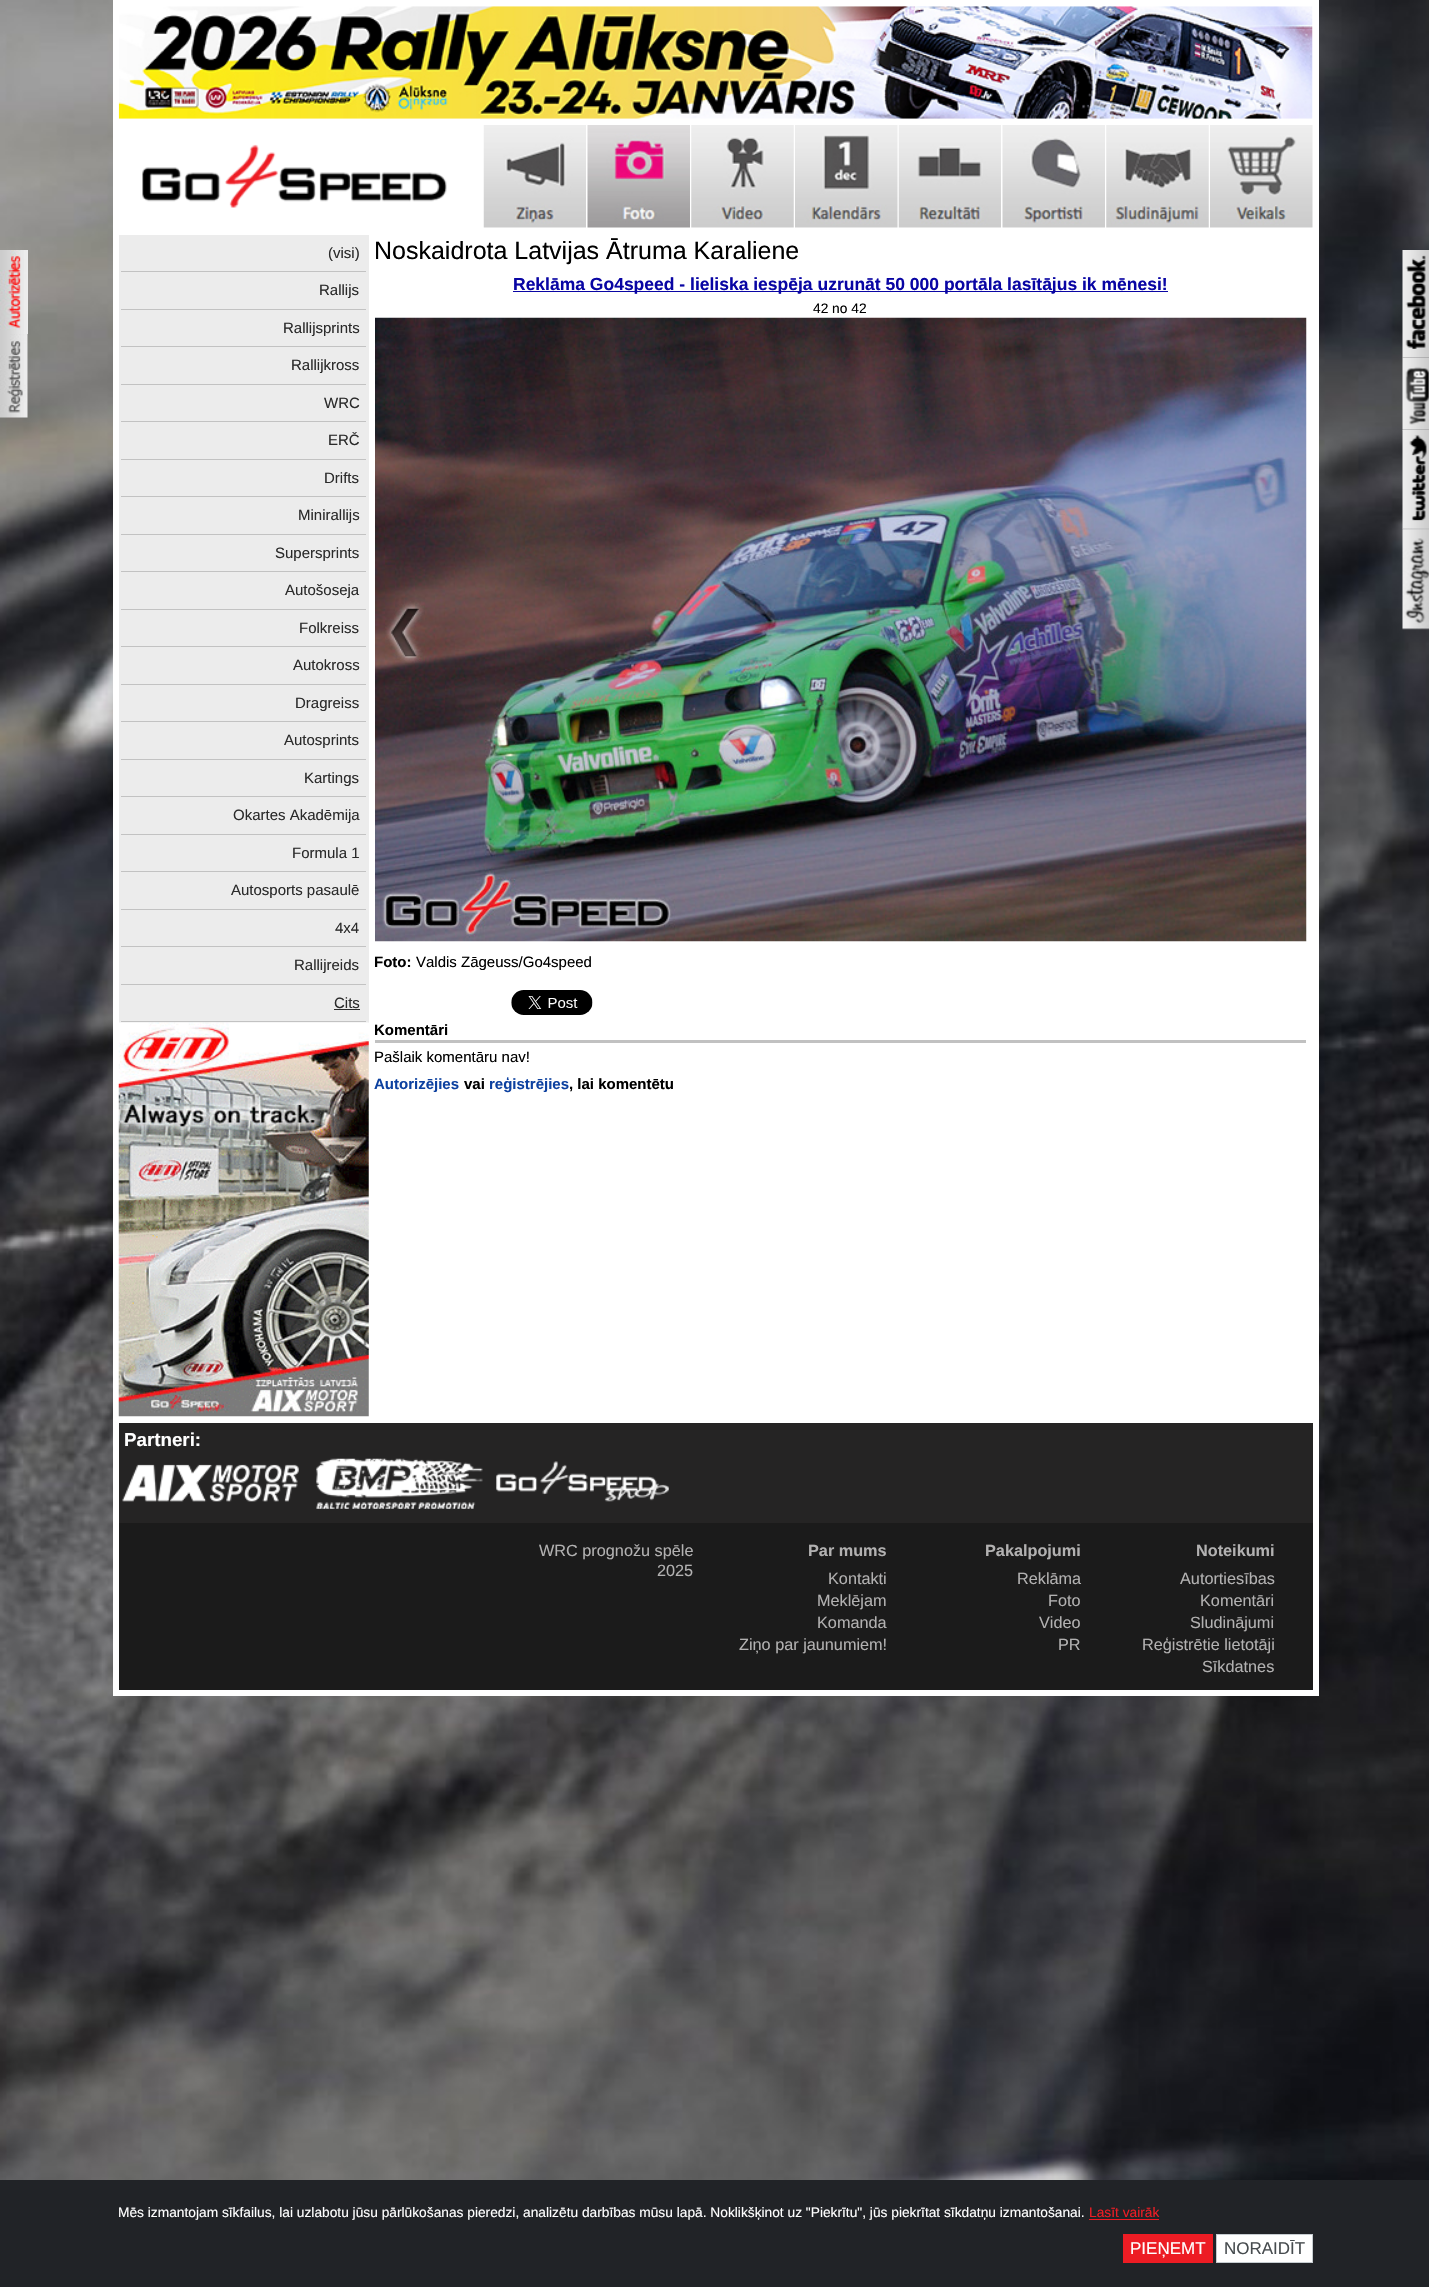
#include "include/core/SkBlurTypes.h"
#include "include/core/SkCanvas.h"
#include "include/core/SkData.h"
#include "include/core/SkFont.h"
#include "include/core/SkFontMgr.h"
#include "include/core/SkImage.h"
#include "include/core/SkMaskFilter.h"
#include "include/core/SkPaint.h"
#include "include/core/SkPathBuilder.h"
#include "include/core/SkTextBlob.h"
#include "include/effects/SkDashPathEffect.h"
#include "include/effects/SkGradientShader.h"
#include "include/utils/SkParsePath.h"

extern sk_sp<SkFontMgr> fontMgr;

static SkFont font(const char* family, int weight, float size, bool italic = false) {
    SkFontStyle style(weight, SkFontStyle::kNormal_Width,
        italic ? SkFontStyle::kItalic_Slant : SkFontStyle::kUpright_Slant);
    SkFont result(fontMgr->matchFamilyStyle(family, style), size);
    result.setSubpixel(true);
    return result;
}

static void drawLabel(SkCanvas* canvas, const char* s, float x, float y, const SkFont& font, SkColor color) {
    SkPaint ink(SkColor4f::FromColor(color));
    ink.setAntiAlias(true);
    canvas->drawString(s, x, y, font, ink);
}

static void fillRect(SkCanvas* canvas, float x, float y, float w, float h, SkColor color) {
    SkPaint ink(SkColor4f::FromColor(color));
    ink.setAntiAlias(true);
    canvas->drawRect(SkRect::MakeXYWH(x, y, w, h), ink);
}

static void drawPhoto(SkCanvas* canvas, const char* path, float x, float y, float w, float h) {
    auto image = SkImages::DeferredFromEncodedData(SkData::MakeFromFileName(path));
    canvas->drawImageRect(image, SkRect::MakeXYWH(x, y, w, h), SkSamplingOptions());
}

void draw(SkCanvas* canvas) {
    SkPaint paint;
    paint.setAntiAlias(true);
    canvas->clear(0xFFFFFFFF);
    drawPhoto(canvas, "assets/img1.png", 0, 0, 1429, 2180);
    drawPhoto(canvas, "assets/img2.png", 0, 250, 28, 84);
    drawPhoto(canvas, "assets/img3.png", 0, 334, 28, 84);
    fillRect(canvas, 113, 0, 1206, 1696, 0xFFFFFFFF);
    drawPhoto(canvas, "assets/img4.png", 118, 6, 1195, 113);
    drawPhoto(canvas, "assets/img5.png", 142, 144, 305, 64);
    drawPhoto(canvas, "assets/img6.png", 483, 125, 103, 103);
    drawPhoto(canvas, "assets/img7.png", 587, 125, 103, 103);
    drawPhoto(canvas, "assets/img8.png", 691, 125, 103, 103);
    drawPhoto(canvas, "assets/img9.png", 795, 125, 103, 103);
    drawPhoto(canvas, "assets/img10.png", 898, 125, 103, 103);
    drawPhoto(canvas, "assets/img11.png", 1002, 125, 103, 103);
    drawPhoto(canvas, "assets/img12.png", 1106, 125, 103, 103);
    drawPhoto(canvas, "assets/img13.png", 1210, 125, 103, 103);
    fillRect(canvas, 119, 235, 250, 788, 0xFFECECEC);
    fillRect(canvas, 121, 271, 245, 1, 0xFFC2C2C2);
    SkFont font1 = font("Liberation Sans", 400, 15);
    drawLabel(canvas, "(visi)", 328, 258, font1, 0xFF2B2B2B);
    fillRect(canvas, 121, 309, 245, 1, 0xFFC2C2C2);
    drawLabel(canvas, "Rallijs", 319, 295, font1, 0xFF2B2B2B);
    fillRect(canvas, 121, 346, 245, 1, 0xFFC2C2C2);
    drawLabel(canvas, "Rallijsprints", 283, 333, font1, 0xFF2B2B2B);
    fillRect(canvas, 121, 384, 245, 1, 0xFFC2C2C2);
    drawLabel(canvas, "Rallijkross", 291, 370, font1, 0xFF2B2B2B);
    fillRect(canvas, 121, 421, 245, 1, 0xFFC2C2C2);
    drawLabel(canvas, "WRC", 324, 408, font1, 0xFF2B2B2B);
    fillRect(canvas, 121, 459, 245, 1, 0xFFC2C2C2);
    drawLabel(canvas, "ERČ", 328, 445, font1, 0xFF2B2B2B);
    fillRect(canvas, 121, 496, 245, 1, 0xFFC2C2C2);
    drawLabel(canvas, "Drifts", 324, 483, font1, 0xFF2B2B2B);
    fillRect(canvas, 121, 534, 245, 1, 0xFFC2C2C2);
    drawLabel(canvas, "Minirallijs", 298, 520, font1, 0xFF2B2B2B);
    fillRect(canvas, 121, 571, 245, 1, 0xFFC2C2C2);
    drawLabel(canvas, "Supersprints", 275, 558, font1, 0xFF2B2B2B);
    fillRect(canvas, 121, 609, 245, 1, 0xFFC2C2C2);
    drawLabel(canvas, "Autošoseja", 285, 595, font1, 0xFF2B2B2B);
    fillRect(canvas, 121, 646, 245, 1, 0xFFC2C2C2);
    drawLabel(canvas, "Folkreiss", 299, 633, font1, 0xFF2B2B2B);
    fillRect(canvas, 121, 684, 245, 1, 0xFFC2C2C2);
    drawLabel(canvas, "Autokross", 293, 670, font1, 0xFF2B2B2B);
    fillRect(canvas, 121, 721, 245, 1, 0xFFC2C2C2);
    drawLabel(canvas, "Dragreiss", 295, 708, font1, 0xFF2B2B2B);
    fillRect(canvas, 121, 759, 245, 1, 0xFFC2C2C2);
    drawLabel(canvas, "Autosprints", 284, 745, font1, 0xFF2B2B2B);
    fillRect(canvas, 121, 796, 245, 1, 0xFFC2C2C2);
    drawLabel(canvas, "Kartings", 304, 783, font1, 0xFF2B2B2B);
    fillRect(canvas, 121, 834, 245, 1, 0xFFC2C2C2);
    drawLabel(canvas, "Okartes Akadēmija", 233, 820, font1, 0xFF2B2B2B);
    fillRect(canvas, 121, 871, 245, 1, 0xFFC2C2C2);
    drawLabel(canvas, "Formula 1", 292, 858, font1, 0xFF2B2B2B);
    fillRect(canvas, 121, 909, 245, 1, 0xFFC2C2C2);
    drawLabel(canvas, "Autosports pasaulē", 231, 895, font1, 0xFF2B2B2B);
    fillRect(canvas, 121, 946, 245, 1, 0xFFC2C2C2);
    drawLabel(canvas, "4x4", 335, 933, font1, 0xFF2B2B2B);
    fillRect(canvas, 121, 984, 245, 1, 0xFFC2C2C2);
    drawLabel(canvas, "Rallijreids", 294, 970, font1, 0xFF2B2B2B);
    fillRect(canvas, 121, 1021, 245, 1, 0xFFC2C2C2);
    drawLabel(canvas, "Cits", 334, 1008, font1, 0xFF2B2B2B);
    fillRect(canvas, 334, 1009, 26, 1, 0xFF2B2B2B);
    drawPhoto(canvas, "assets/img14.png", 118, 1022, 251, 395);
    SkFont font2 = font("Liberation Sans", 400, 25);
    drawLabel(canvas, "Noskaidrota Latvijas Ātruma Karaliene", 374, 259, font2, 0xFF000000);
    fillRect(canvas, 513, 291, 655, 1, 0xFF0905A4);
    SkFont font3 = font("Liberation Sans", 700, 17.5f);
    drawLabel(canvas, "Reklāma Go4speed - lieliska iespēja uzrunāt 50 000 portāla lasītājus ik mēnesi!", 513, 290, font3, 0xFF0905A4);
    SkFont font4 = font("Liberation Sans", 400, 13.75f);
    drawLabel(canvas, "42 no 42", 813, 313, font4, 0xFF000000);
    drawPhoto(canvas, "assets/img15.png", 375, 317, 932, 625);
    drawPhoto(canvas, "assets/img16.png", 385, 601, 39, 62);
    SkFont font5 = font("Liberation Sans", 700, 15);
    drawLabel(canvas, "Foto:", 374, 967, font5, 0xFF000000);
    drawLabel(canvas, "Valdis Zāgeuss/Go4speed", 416, 967, font1, 0xFF000000);
    drawPhoto(canvas, "assets/img17.png", 511, 990, 82, 25);
    fillRect(canvas, 375, 1040, 931, 3, 0xFFC1C1C1);
    drawLabel(canvas, "Komentāri", 374, 1035, font5, 0xFF000000);
    drawLabel(canvas, "Pašlaik komentāru nav!", 374, 1062, font1, 0xFF000000);
    drawLabel(canvas, "Autorizējies", 374, 1089, font5, 0xFF0D41A0);
    drawLabel(canvas, "vai", 464, 1089, font5, 0xFF000000);
    drawLabel(canvas, "reģistrējies", 489, 1089, font5, 0xFF0D41A0);
    drawLabel(canvas, ", lai komentētu", 569, 1089, font5, 0xFF000000);
    fillRect(canvas, 119, 1423, 1194, 100, 0xFF252424);
    SkFont font6 = font("Liberation Sans", 700, 18.75f);
    drawLabel(canvas, "Partneri:", 124, 1446, font6, 0xFFFFFFFF);
    drawPhoto(canvas, "assets/img18.png", 122, 1464, 177, 38);
    drawPhoto(canvas, "assets/img19.png", 316, 1458, 167, 51);
    drawPhoto(canvas, "assets/img20.png", 496, 1461, 173, 41);
    fillRect(canvas, 119, 1523, 1194, 167, 0xFF1B1B1B);
    SkFont font7 = font("Liberation Sans", 400, 16.25f);
    drawLabel(canvas, "WRC prognožu spēle", 539, 1556, font7, 0xFFB2B1B1);
    drawLabel(canvas, "2025", 657, 1576, font7, 0xFFB2B1B1);
    SkFont font8 = font("Liberation Sans", 700, 16.25f);
    drawLabel(canvas, "Par mums", 808, 1556, font8, 0xFFB2B1B1);
    drawLabel(canvas, "Kontakti", 828, 1584, font7, 0xFFB2B1B1);
    drawLabel(canvas, "Meklējam", 817, 1606, font7, 0xFFB2B1B1);
    drawLabel(canvas, "Komanda", 817, 1628, font7, 0xFFB2B1B1);
    drawLabel(canvas, "Ziņo par jaunumiem!", 739, 1650, font7, 0xFFB2B1B1);
    drawLabel(canvas, "Pakalpojumi", 985, 1556, font8, 0xFFB2B1B1);
    drawLabel(canvas, "Reklāma", 1017, 1584, font7, 0xFFB2B1B1);
    drawLabel(canvas, "Foto", 1048, 1606, font7, 0xFFB2B1B1);
    drawLabel(canvas, "Video", 1039, 1628, font7, 0xFFB2B1B1);
    drawLabel(canvas, "PR", 1058, 1650, font7, 0xFFB2B1B1);
    drawLabel(canvas, "Noteikumi", 1196, 1556, font8, 0xFFB2B1B1);
    drawLabel(canvas, "Autortiesības", 1180, 1584, font7, 0xFFB2B1B1);
    drawLabel(canvas, "Komentāri", 1200, 1606, font7, 0xFFB2B1B1);
    drawLabel(canvas, "Sludinājumi", 1190, 1628, font7, 0xFFB2B1B1);
    drawLabel(canvas, "Reģistrētie lietotāji", 1142, 1650, font7, 0xFFB2B1B1);
    drawLabel(canvas, "Sīkdatnes", 1202, 1672, font7, 0xFFB2B1B1);
    drawPhoto(canvas, "assets/img21.png", 1402, 250, 27, 108);
    drawPhoto(canvas, "assets/img22.png", 1402, 357, 27, 74);
    drawPhoto(canvas, "assets/img23.png", 1402, 430, 27, 99);
    drawPhoto(canvas, "assets/img24.png", 1402, 528, 27, 102);
    fillRect(canvas, 0, 2180, 1429, 107, 0xFF212327);
    drawLabel(canvas, "Mēs izmantojam sīkfailus, lai uzlabotu jūsu pārlūkošanas pieredzi, analizētu darbības mūsu lapā. Noklikšķinot uz \"Piekrītu\", jūs piekrītat sīkdatņu izmantošanai.", 118, 2217, font4, 0xFFFFFFFF);
    drawLabel(canvas, "Lasīt vairāk", 1089, 2217, font4, 0xFFED1C24);
    fillRect(canvas, 1089, 2219, 70, 1, 0xFFED1C24);
    fillRect(canvas, 1123, 2234, 90, 29, 0xFFED1C24);
    SkFont font9 = font("Liberation Sans", 400, 17);
    drawLabel(canvas, "PIEŅEMT", 1130, 2254, font9, 0xFFFFFFFF);
    paint.setColor(0xFFFFFFFF);
    canvas->drawRect(SkRect::MakeXYWH(1216.5f, 2234.5f, 96, 28), paint);
    paint.setStroke(true);
    paint.setStrokeWidth(1);
    paint.setColor(0xFFC6CCD0);
    canvas->drawRect(SkRect::MakeXYWH(1216.5f, 2234.5f, 96, 28), paint);
    drawLabel(canvas, "NORAIDĪT", 1224, 2254, font9, 0xFF474C4F);
}
